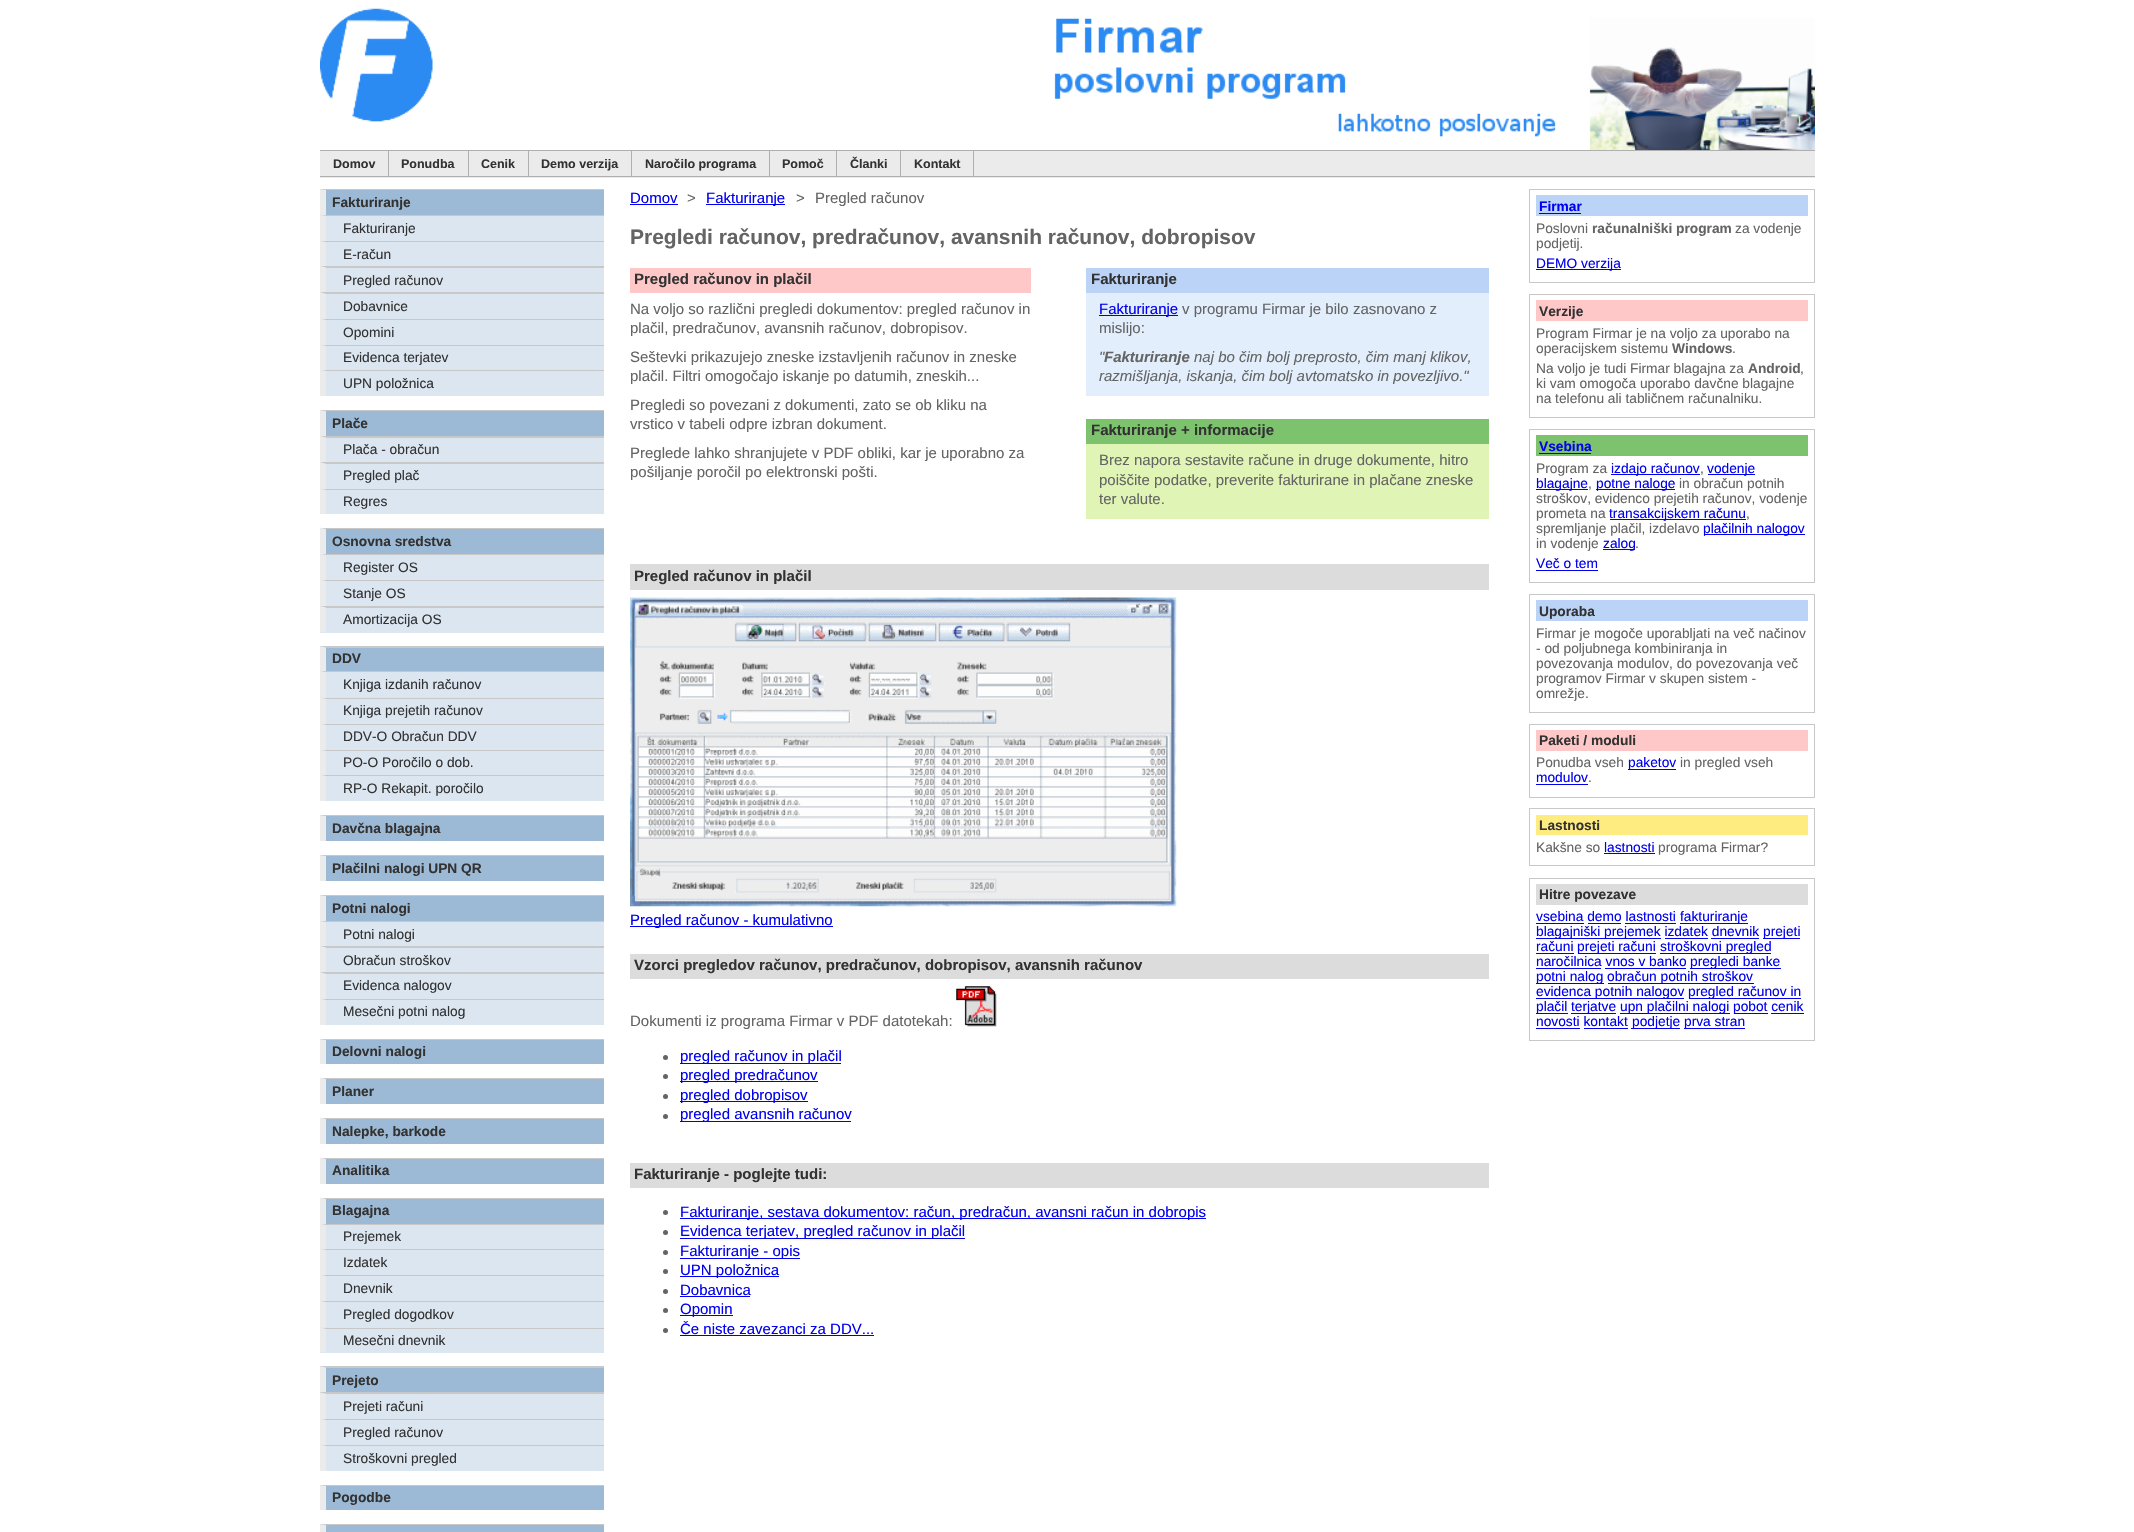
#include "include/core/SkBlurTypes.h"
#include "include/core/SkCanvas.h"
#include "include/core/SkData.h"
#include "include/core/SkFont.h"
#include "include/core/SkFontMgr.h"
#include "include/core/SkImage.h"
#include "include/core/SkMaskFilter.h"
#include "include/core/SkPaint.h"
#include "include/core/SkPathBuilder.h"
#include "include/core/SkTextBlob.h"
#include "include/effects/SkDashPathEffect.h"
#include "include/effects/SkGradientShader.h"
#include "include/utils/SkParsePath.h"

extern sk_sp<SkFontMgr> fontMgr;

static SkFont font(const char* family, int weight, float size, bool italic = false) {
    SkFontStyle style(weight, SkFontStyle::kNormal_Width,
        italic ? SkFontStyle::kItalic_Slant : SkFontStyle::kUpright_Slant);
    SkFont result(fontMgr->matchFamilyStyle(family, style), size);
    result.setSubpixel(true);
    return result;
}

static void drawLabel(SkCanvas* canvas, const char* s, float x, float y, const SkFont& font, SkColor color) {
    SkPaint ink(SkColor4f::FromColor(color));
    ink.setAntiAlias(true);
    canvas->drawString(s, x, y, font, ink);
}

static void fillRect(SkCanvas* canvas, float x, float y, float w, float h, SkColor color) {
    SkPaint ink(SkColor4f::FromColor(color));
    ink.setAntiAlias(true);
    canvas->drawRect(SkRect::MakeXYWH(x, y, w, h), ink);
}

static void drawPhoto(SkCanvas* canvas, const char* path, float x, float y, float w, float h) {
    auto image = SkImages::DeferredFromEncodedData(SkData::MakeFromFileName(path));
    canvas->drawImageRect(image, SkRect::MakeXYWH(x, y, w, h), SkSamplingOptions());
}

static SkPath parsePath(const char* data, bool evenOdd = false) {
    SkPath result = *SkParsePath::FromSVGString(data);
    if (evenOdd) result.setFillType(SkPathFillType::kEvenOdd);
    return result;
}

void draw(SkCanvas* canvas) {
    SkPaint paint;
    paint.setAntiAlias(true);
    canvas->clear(0xFFFFFFFF);
    drawPhoto(canvas, "assets/img1.png", 320, 8, 113, 114);
    drawPhoto(canvas, "assets/img2.png", 1054, 18, 761, 132);
    fillRect(canvas, 320, 151, 1495, 27, 0xFFEBEBEB);
    fillRect(canvas, 320, 150, 1495, 1, 0xFFAFAFAF);
    fillRect(canvas, 320, 176, 1495, 1, 0xFFAFAFAF);
    fillRect(canvas, 388, 151, 1, 25, 0xFFAFAFAF);
    SkFont font1 = font("Liberation Sans", 700, 12.5f);
    drawLabel(canvas, "Domov", 333, 168, font1, 0xFF323232);
    fillRect(canvas, 468, 151, 1, 25, 0xFFAFAFAF);
    drawLabel(canvas, "Ponudba", 401, 168, font1, 0xFF323232);
    fillRect(canvas, 528, 151, 1, 25, 0xFFAFAFAF);
    drawLabel(canvas, "Cenik", 481, 168, font1, 0xFF323232);
    fillRect(canvas, 631, 151, 1, 25, 0xFFAFAFAF);
    drawLabel(canvas, "Demo verzija", 541, 168, font1, 0xFF323232);
    fillRect(canvas, 769, 151, 1, 25, 0xFFAFAFAF);
    drawLabel(canvas, "Naročilo programa", 645, 168, font1, 0xFF323232);
    fillRect(canvas, 836, 151, 1, 25, 0xFFAFAFAF);
    drawLabel(canvas, "Pomoč", 782, 168, font1, 0xFF323232);
    fillRect(canvas, 900, 151, 1, 25, 0xFFAFAFAF);
    drawLabel(canvas, "Članki", 850, 168, font1, 0xFF323232);
    fillRect(canvas, 973, 151, 1, 25, 0xFFAFAFAF);
    drawLabel(canvas, "Kontakt", 914, 168, font1, 0xFF323232);
    fillRect(canvas, 320, 189, 284, 26, 0xFF9CBAD6);
    paint.setColor(0xFFC8C8C8);
    canvas->drawPath(parsePath("M320 189H604V190H326Z"), paint);
    paint.setColor(0xFFEBEBEB);
    canvas->drawPath(parsePath("M320 215V189L326 190V215Z"), paint);
    SkFont font2 = font("Liberation Sans", 700, 13.75f);
    drawLabel(canvas, "Fakturiranje", 332, 207, font2, 0xFF323232);
    fillRect(canvas, 320, 215, 284, 78, 0xFFDBE6F1);
    paint.setColor(0xFFC8C8C8);
    canvas->drawPath(parsePath("M320 215H604V216H326Z"), paint);
    paint.setColor(0xFFEBEBEB);
    canvas->drawPath(parsePath("M320 241V215L326 216V241Z"), paint);
    SkFont font3 = font("Liberation Sans", 400, 13.75f);
    drawLabel(canvas, "Fakturiranje", 343, 233, font3, 0xFF323232);
    paint.setColor(0xFFC8C8C8);
    canvas->drawPath(parsePath("M320 241H604V242H326Z"), paint);
    paint.setColor(0xFFEBEBEB);
    canvas->drawPath(parsePath("M320 266V241L326 242.5V266Z"), paint);
    drawLabel(canvas, "E-račun", 343, 259, font3, 0xFF323232);
    paint.setColor(0xFFC8C8C8);
    canvas->drawPath(parsePath("M320 266H604V268H326Z"), paint);
    paint.setColor(0xFFEBEBEB);
    canvas->drawPath(parsePath("M320 292.5V266L326 267.5V292.5Z"), paint);
    drawLabel(canvas, "Pregled računov", 343, 285, font3, 0xFF323232);
    fillRect(canvas, 322, 293, 282, 26, 0xFFDBE6F1);
    paint.setColor(0xFFC8C8C8);
    canvas->drawPath(parsePath("M320 292H604V294H326Z"), paint);
    paint.setColor(0xFFEBEBEB);
    canvas->drawPath(parsePath("M320 319V292.5L326 294V319Z"), paint);
    drawLabel(canvas, "Dobavnice", 343, 311, font3, 0xFF323232);
    fillRect(canvas, 320, 319, 284, 77, 0xFFDBE6F1);
    paint.setColor(0xFFC8C8C8);
    canvas->drawPath(parsePath("M320 319H604V320H326Z"), paint);
    paint.setColor(0xFFEBEBEB);
    canvas->drawPath(parsePath("M320 345V319L326 320V345Z"), paint);
    drawLabel(canvas, "Opomini", 343, 337, font3, 0xFF323232);
    paint.setColor(0xFFC8C8C8);
    canvas->drawPath(parsePath("M320 345H604V346H326Z"), paint);
    paint.setColor(0xFFEBEBEB);
    canvas->drawPath(parsePath("M320 370V345L326 346V370Z"), paint);
    drawLabel(canvas, "Evidenca terjatev", 343, 362, font3, 0xFF323232);
    paint.setColor(0xFFC8C8C8);
    canvas->drawPath(parsePath("M320 370H604V371H326Z"), paint);
    paint.setColor(0xFFEBEBEB);
    canvas->drawPath(parsePath("M320 396V370L326 371V396Z"), paint);
    drawLabel(canvas, "UPN položnica", 343, 388, font3, 0xFF323232);
    fillRect(canvas, 320, 410, 284, 26, 0xFF9CBAD6);
    paint.setColor(0xFFC8C8C8);
    canvas->drawPath(parsePath("M320 410H604V411H326Z"), paint);
    paint.setColor(0xFFEBEBEB);
    canvas->drawPath(parsePath("M320 436V410L326 411V436Z"), paint);
    drawLabel(canvas, "Plače", 332, 428, font2, 0xFF323232);
    fillRect(canvas, 320, 436, 284, 27, 0xFFDBE6F1);
    paint.setColor(0xFFC8C8C8);
    canvas->drawPath(parsePath("M320 436H604V438H326Z"), paint);
    paint.setColor(0xFFEBEBEB);
    canvas->drawPath(parsePath("M320 462.5V436L326 437.5V462.5Z"), paint);
    drawLabel(canvas, "Plača - obračun", 343, 454, font3, 0xFF323232);
    fillRect(canvas, 322, 463, 282, 26, 0xFFDBE6F1);
    paint.setColor(0xFFC8C8C8);
    canvas->drawPath(parsePath("M320 462H604V464H326Z"), paint);
    paint.setColor(0xFFEBEBEB);
    canvas->drawPath(parsePath("M320 489V462.5L326 464V489Z"), paint);
    drawLabel(canvas, "Pregled plač", 343, 480, font3, 0xFF323232);
    fillRect(canvas, 320, 489, 284, 25, 0xFFDBE6F1);
    paint.setColor(0xFFC8C8C8);
    canvas->drawPath(parsePath("M320 489H604V490H326Z"), paint);
    paint.setColor(0xFFEBEBEB);
    canvas->drawPath(parsePath("M320 514V489L326 490V514Z"), paint);
    drawLabel(canvas, "Regres", 343, 506, font3, 0xFF323232);
    fillRect(canvas, 322, 528, 282, 26, 0xFF9CBAD6);
    paint.setColor(0xFFC8C8C8);
    canvas->drawPath(parsePath("M320 528H604V529H326Z"), paint);
    paint.setColor(0xFFEBEBEB);
    canvas->drawPath(parsePath("M320 554V527.5L326 529V554Z"), paint);
    drawLabel(canvas, "Osnovna sredstva", 332, 546, font2, 0xFF323232);
    fillRect(canvas, 320, 554, 284, 79, 0xFFDBE6F1);
    paint.setColor(0xFFC8C8C8);
    canvas->drawPath(parsePath("M320 554H604V555H326Z"), paint);
    paint.setColor(0xFFEBEBEB);
    canvas->drawPath(parsePath("M320 580V554L326 555V580Z"), paint);
    drawLabel(canvas, "Register OS", 343, 572, font3, 0xFF323232);
    paint.setColor(0xFFC8C8C8);
    canvas->drawPath(parsePath("M320 580H604V581H326Z"), paint);
    paint.setColor(0xFFEBEBEB);
    canvas->drawPath(parsePath("M320 606V580L326 581V606Z"), paint);
    drawLabel(canvas, "Stanje OS", 343, 598, font3, 0xFF323232);
    paint.setColor(0xFFC8C8C8);
    canvas->drawPath(parsePath("M320 606H604V608H326Z"), paint);
    paint.setColor(0xFFEBEBEB);
    canvas->drawPath(parsePath("M320 632.5V606L326 607.5V632.5Z"), paint);
    drawLabel(canvas, "Amortizacija OS", 343, 624, font3, 0xFF323232);
    fillRect(canvas, 320, 646, 284, 25, 0xFF9CBAD6);
    paint.setColor(0xFFC8C8C8);
    canvas->drawPath(parsePath("M320 646H604V648H326Z"), paint);
    paint.setColor(0xFFEBEBEB);
    canvas->drawPath(parsePath("M320 671V646L326 647.5V671Z"), paint);
    drawLabel(canvas, "DDV", 332, 663, font2, 0xFF323232);
    fillRect(canvas, 320, 671, 284, 27, 0xFFDBE6F1);
    paint.setColor(0xFFC8C8C8);
    canvas->drawPath(parsePath("M320 671H604V672H326Z"), paint);
    paint.setColor(0xFFEBEBEB);
    canvas->drawPath(parsePath("M320 697.5V671L326 672.5V697.5Z"), paint);
    drawLabel(canvas, "Knjiga izdanih računov", 343, 689, font3, 0xFF323232);
    fillRect(canvas, 322, 698, 282, 26, 0xFFDBE6F1);
    paint.setColor(0xFFC8C8C8);
    canvas->drawPath(parsePath("M320 698H604V699H326Z"), paint);
    paint.setColor(0xFFEBEBEB);
    canvas->drawPath(parsePath("M320 724V697.5L326 699V724Z"), paint);
    drawLabel(canvas, "Knjiga prejetih računov", 343, 715, font3, 0xFF323232);
    fillRect(canvas, 320, 724, 284, 77, 0xFFDBE6F1);
    paint.setColor(0xFFC8C8C8);
    canvas->drawPath(parsePath("M320 724H604V725H326Z"), paint);
    paint.setColor(0xFFEBEBEB);
    canvas->drawPath(parsePath("M320 750V724L326 725V750Z"), paint);
    drawLabel(canvas, "DDV-O Obračun DDV", 343, 741, font3, 0xFF323232);
    paint.setColor(0xFFC8C8C8);
    canvas->drawPath(parsePath("M320 750H604V751H326Z"), paint);
    paint.setColor(0xFFEBEBEB);
    canvas->drawPath(parsePath("M320 775V750L326 751V775Z"), paint);
    drawLabel(canvas, "PO-O Poročilo o dob.", 343, 767, font3, 0xFF323232);
    paint.setColor(0xFFC8C8C8);
    canvas->drawPath(parsePath("M320 775H604V776H326Z"), paint);
    paint.setColor(0xFFEBEBEB);
    canvas->drawPath(parsePath("M320 801V775L326 776V801Z"), paint);
    drawLabel(canvas, "RP-O Rekapit. poročilo", 343, 793, font3, 0xFF323232);
    fillRect(canvas, 320, 815, 284, 26, 0xFF9CBAD6);
    paint.setColor(0xFFC8C8C8);
    canvas->drawPath(parsePath("M320 815H604V816H326Z"), paint);
    paint.setColor(0xFFEBEBEB);
    canvas->drawPath(parsePath("M320 841V815L326 816V841Z"), paint);
    drawLabel(canvas, "Davčna blagajna", 332, 833, font2, 0xFF323232);
    fillRect(canvas, 320, 855, 284, 26, 0xFF9CBAD6);
    paint.setColor(0xFFC8C8C8);
    canvas->drawPath(parsePath("M320 855H604V856H326Z"), paint);
    paint.setColor(0xFFEBEBEB);
    canvas->drawPath(parsePath("M320 881V855L326 856V881Z"), paint);
    drawLabel(canvas, "Plačilni nalogi UPN QR", 332, 873, font2, 0xFF323232);
    fillRect(canvas, 320, 895, 284, 26, 0xFF9CBAD6);
    paint.setColor(0xFFC8C8C8);
    canvas->drawPath(parsePath("M320 895H604V896H326Z"), paint);
    paint.setColor(0xFFEBEBEB);
    canvas->drawPath(parsePath("M320 921V895L326 896V921Z"), paint);
    drawLabel(canvas, "Potni nalogi", 332, 913, font2, 0xFF323232);
    fillRect(canvas, 320, 921, 284, 52, 0xFFDBE6F1);
    paint.setColor(0xFFC8C8C8);
    canvas->drawPath(parsePath("M320 921H604V922H326Z"), paint);
    paint.setColor(0xFFEBEBEB);
    canvas->drawPath(parsePath("M320 946V921L326 922.5V946Z"), paint);
    drawLabel(canvas, "Potni nalogi", 343, 939, font3, 0xFF323232);
    paint.setColor(0xFFC8C8C8);
    canvas->drawPath(parsePath("M320 946H604V948H326Z"), paint);
    paint.setColor(0xFFEBEBEB);
    canvas->drawPath(parsePath("M320 972.5V946L326 947.5V972.5Z"), paint);
    drawLabel(canvas, "Obračun stroškov", 343, 965, font3, 0xFF323232);
    fillRect(canvas, 322, 973, 282, 26, 0xFFDBE6F1);
    paint.setColor(0xFFC8C8C8);
    canvas->drawPath(parsePath("M320 972H604V974H326Z"), paint);
    paint.setColor(0xFFEBEBEB);
    canvas->drawPath(parsePath("M320 999V972.5L326 974V999Z"), paint);
    drawLabel(canvas, "Evidenca nalogov", 343, 990, font3, 0xFF323232);
    fillRect(canvas, 320, 999, 284, 26, 0xFFDBE6F1);
    paint.setColor(0xFFC8C8C8);
    canvas->drawPath(parsePath("M320 999H604V1000H326Z"), paint);
    paint.setColor(0xFFEBEBEB);
    canvas->drawPath(parsePath("M320 1025V999L326 1000V1025Z"), paint);
    drawLabel(canvas, "Mesečni potni nalog", 343, 1016, font3, 0xFF323232);
    fillRect(canvas, 320, 1039, 284, 25, 0xFF9CBAD6);
    paint.setColor(0xFFC8C8C8);
    canvas->drawPath(parsePath("M320 1039H604V1040H326Z"), paint);
    paint.setColor(0xFFEBEBEB);
    canvas->drawPath(parsePath("M320 1064V1039L326 1040V1064Z"), paint);
    drawLabel(canvas, "Delovni nalogi", 332, 1056, font2, 0xFF323232);
    fillRect(canvas, 322, 1078, 282, 26, 0xFF9CBAD6);
    paint.setColor(0xFFC8C8C8);
    canvas->drawPath(parsePath("M320 1078H604V1079H326Z"), paint);
    paint.setColor(0xFFEBEBEB);
    canvas->drawPath(parsePath("M320 1104V1077.5L326 1079V1104Z"), paint);
    drawLabel(canvas, "Planer", 332, 1096, font2, 0xFF323232);
    fillRect(canvas, 322, 1118, 282, 26, 0xFF9CBAD6);
    paint.setColor(0xFFC8C8C8);
    canvas->drawPath(parsePath("M320 1118H604V1119H326Z"), paint);
    paint.setColor(0xFFEBEBEB);
    canvas->drawPath(parsePath("M320 1144V1117.5L326 1119V1144Z"), paint);
    drawLabel(canvas, "Nalepke, barkode", 332, 1136, font2, 0xFF323232);
    fillRect(canvas, 322, 1158, 282, 26, 0xFF9CBAD6);
    paint.setColor(0xFFC8C8C8);
    canvas->drawPath(parsePath("M320 1158H604V1159H326Z"), paint);
    paint.setColor(0xFFEBEBEB);
    canvas->drawPath(parsePath("M320 1184V1157.5L326 1159V1184Z"), paint);
    drawLabel(canvas, "Analitika", 332, 1175, font2, 0xFF323232);
    fillRect(canvas, 322, 1198, 282, 26, 0xFF9CBAD6);
    paint.setColor(0xFFC8C8C8);
    canvas->drawPath(parsePath("M320 1198H604V1199H326Z"), paint);
    paint.setColor(0xFFEBEBEB);
    canvas->drawPath(parsePath("M320 1224V1197.5L326 1199V1224Z"), paint);
    drawLabel(canvas, "Blagajna", 332, 1215, font2, 0xFF323232);
    fillRect(canvas, 320, 1224, 284, 129, 0xFFDBE6F1);
    paint.setColor(0xFFC8C8C8);
    canvas->drawPath(parsePath("M320 1224H604V1225H326Z"), paint);
    paint.setColor(0xFFEBEBEB);
    canvas->drawPath(parsePath("M320 1249V1224L326 1225V1249Z"), paint);
    drawLabel(canvas, "Prejemek", 343, 1241, font3, 0xFF323232);
    paint.setColor(0xFFC8C8C8);
    canvas->drawPath(parsePath("M320 1249H604V1250H326Z"), paint);
    paint.setColor(0xFFEBEBEB);
    canvas->drawPath(parsePath("M320 1275V1249L326 1250V1275Z"), paint);
    drawLabel(canvas, "Izdatek", 343, 1267, font3, 0xFF323232);
    paint.setColor(0xFFC8C8C8);
    canvas->drawPath(parsePath("M320 1275H604V1276H326Z"), paint);
    paint.setColor(0xFFEBEBEB);
    canvas->drawPath(parsePath("M320 1301V1275L326 1276V1301Z"), paint);
    drawLabel(canvas, "Dnevnik", 343, 1293, font3, 0xFF323232);
    paint.setColor(0xFFC8C8C8);
    canvas->drawPath(parsePath("M320 1301H604V1302H326Z"), paint);
    paint.setColor(0xFFEBEBEB);
    canvas->drawPath(parsePath("M320 1327.5V1301L326 1302.5V1327.5Z"), paint);
    drawLabel(canvas, "Pregled dogodkov", 343, 1319, font3, 0xFF323232);
    paint.setColor(0xFFC8C8C8);
    canvas->drawPath(parsePath("M320 1328H604V1329H326Z"), paint);
    paint.setColor(0xFFEBEBEB);
    canvas->drawPath(parsePath("M320 1352.5V1327.5L326 1329V1352.5Z"), paint);
    drawLabel(canvas, "Mesečni dnevnik", 343, 1345, font3, 0xFF323232);
    fillRect(canvas, 320, 1366, 284, 27, 0xFF9CBAD6);
    paint.setColor(0xFFC8C8C8);
    canvas->drawPath(parsePath("M320 1366H604V1368H326Z"), paint);
    paint.setColor(0xFFEBEBEB);
    canvas->drawPath(parsePath("M320 1392.5V1366L326 1367.5V1392.5Z"), paint);
    drawLabel(canvas, "Prejeto", 332, 1385, font2, 0xFF323232);
    fillRect(canvas, 322, 1393, 282, 26, 0xFFDBE6F1);
    paint.setColor(0xFFC8C8C8);
    canvas->drawPath(parsePath("M320 1392H604V1394H326Z"), paint);
    paint.setColor(0xFFEBEBEB);
    canvas->drawPath(parsePath("M320 1419V1392.5L326 1394V1419Z"), paint);
    drawLabel(canvas, "Prejeti računi", 343, 1411, font3, 0xFF323232);
    fillRect(canvas, 320, 1419, 284, 52, 0xFFDBE6F1);
    paint.setColor(0xFFC8C8C8);
    canvas->drawPath(parsePath("M320 1419H604V1420H326Z"), paint);
    paint.setColor(0xFFEBEBEB);
    canvas->drawPath(parsePath("M320 1445V1419L326 1420V1445Z"), paint);
    drawLabel(canvas, "Pregled računov", 343, 1437, font3, 0xFF323232);
    paint.setColor(0xFFC8C8C8);
    canvas->drawPath(parsePath("M320 1445H604V1446H326Z"), paint);
    paint.setColor(0xFFEBEBEB);
    canvas->drawPath(parsePath("M320 1471V1445L326 1446V1471Z"), paint);
    drawLabel(canvas, "Stroškovni pregled", 343, 1463, font3, 0xFF323232);
    fillRect(canvas, 320, 1485, 284, 25, 0xFF9CBAD6);
    paint.setColor(0xFFC8C8C8);
    canvas->drawPath(parsePath("M320 1485H604V1486H326Z"), paint);
    paint.setColor(0xFFEBEBEB);
    canvas->drawPath(parsePath("M320 1510V1485L326 1486V1510Z"), paint);
    drawLabel(canvas, "Pogodbe", 332, 1502, font2, 0xFF323232);
    fillRect(canvas, 320, 1524, 284, 8, 0xFF9CBAD6);
    paint.setColor(0xFFC8C8C8);
    canvas->drawPath(parsePath("M320 1524H604V1525H326Z"), paint);
    paint.setColor(0xFFEBEBEB);
    canvas->drawPath(parsePath("M320 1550V1524L326 1525V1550Z"), paint);
    SkFont font4 = font("Liberation Sans", 400, 15);
    drawLabel(canvas, "Domov", 630, 203, font4, 0xFF0000EE);
    fillRect(canvas, 630, 204, 48, 1, 0xFF0000EE);
    drawLabel(canvas, ">", 687, 203, font4, 0xFF646464);
    fillRect(canvas, 706, 204, 79, 1, 0xFF0000EE);
    drawLabel(canvas, "Fakturiranje", 706, 203, font4, 0xFF0000EE);
    drawLabel(canvas, ">", 796, 203, font4, 0xFF646464);
    drawLabel(canvas, "Pregled računov", 815, 203, font4, 0xFF646464);
    SkFont font5 = font("Liberation Sans", 700, 21);
    drawLabel(canvas, "Pregledi računov, predračunov, avansnih računov, dobropisov", 630, 244, font5, 0xFF646464);
    fillRect(canvas, 630, 268, 401, 25, 0xFFFFC8C8);
    SkFont font6 = font("Liberation Sans", 700, 15);
    drawLabel(canvas, "Pregled računov in plačil", 634, 284, font6, 0xFF323232);
    drawLabel(canvas, "Na voljo so različni pregledi dokumentov: pregled računov in", 630, 314, font4, 0xFF646464);
    drawLabel(canvas, "plačil, predračunov, avansnih računov, dobropisov.", 630, 333, font4, 0xFF646464);
    drawLabel(canvas, "Seštevki prikazujejo zneske izstavljenih računov in zneske", 630, 362, font4, 0xFF646464);
    drawLabel(canvas, "plačil. Filtri omogočajo iskanje po datumih, zneskih...", 630, 381, font4, 0xFF646464);
    drawLabel(canvas, "Pregledi so povezani z dokumenti, zato se ob kliku na", 630, 410, font4, 0xFF646464);
    drawLabel(canvas, "vrstico v tabeli odpre izbran dokument.", 630, 429, font4, 0xFF646464);
    drawLabel(canvas, "Preglede lahko shranjujete v PDF obliki, kar je uporabno za", 630, 458, font4, 0xFF646464);
    drawLabel(canvas, "pošiljanje poročil po elektronski pošti.", 630, 477, font4, 0xFF646464);
    fillRect(canvas, 1086, 293, 403, 103, 0xFFE2EEFC);
    fillRect(canvas, 1086, 268, 403, 25, 0xFFBBD3F7);
    drawLabel(canvas, "Fakturiranje", 1091, 284, font6, 0xFF323232);
    fillRect(canvas, 1099, 315, 79, 1, 0xFF0000EE);
    drawLabel(canvas, "Fakturiranje", 1099, 314, font4, 0xFF0000EE);
    drawLabel(canvas, "v programu Firmar je bilo zasnovano z", 1182, 314, font4, 0xFF646464);
    drawLabel(canvas, "mislijo:", 1099, 333, font4, 0xFF646464);
    SkFont font7 = font("Liberation Sans", 400, 15, true);
    drawLabel(canvas, "\"", 1099, 362, font7, 0xFF646464);
    SkFont font8 = font("Liberation Sans", 700, 15, true);
    drawLabel(canvas, "Fakturiranje", 1104, 362, font8, 0xFF646464);
    drawLabel(canvas, "naj bo čim bolj preprosto, čim manj klikov,", 1194, 362, font7, 0xFF646464);
    drawLabel(canvas, "razmišljanja, iskanja, čim bolj avtomatsko in povezljivo.\"", 1099, 381, font7, 0xFF646464);
    fillRect(canvas, 1086, 444, 403, 75, 0xFFE0F4B5);
    fillRect(canvas, 1086, 419, 403, 25, 0xFF7DC36D);
    drawLabel(canvas, "Fakturiranje + informacije", 1091, 435, font6, 0xFF323232);
    drawLabel(canvas, "Brez napora sestavite račune in druge dokumente, hitro", 1099, 465, font4, 0xFF646464);
    drawLabel(canvas, "poiščite podatke, preverite fakturirane in plačane zneske", 1099, 485, font4, 0xFF646464);
    drawLabel(canvas, "ter valute.", 1099, 504, font4, 0xFF646464);
    fillRect(canvas, 630, 564, 859, 26, 0xFFDCDCDC);
    drawLabel(canvas, "Pregled računov in plačil", 634, 581, font6, 0xFF323232);
    drawPhoto(canvas, "assets/img3.png", 630, 597, 547, 310);
    fillRect(canvas, 630, 926, 203, 1, 0xFF0000EE);
    drawLabel(canvas, "Pregled računov - kumulativno", 630, 925, font4, 0xFF0000EE);
    fillRect(canvas, 630, 954, 859, 25, 0xFFDCDCDC);
    drawLabel(canvas, "Vzorci pregledov računov, predračunov, dobropisov, avansnih računov", 634, 970, font6, 0xFF323232);
    drawLabel(canvas, "Dokumenti iz programa Firmar v PDF datotekah:", 630, 1026, font4, 0xFF646464);
    drawPhoto(canvas, "assets/img4.png", 956, 986, 41, 41);
    paint.setColor(0xFF646464);
    canvas->drawCircle(665.5f, 1057.5f, 2.5f, paint);
    fillRect(canvas, 680, 1063, 161, 1, 0xFF0000EE);
    drawLabel(canvas, "pregled računov in plačil", 680, 1061, font4, 0xFF0000EE);
    canvas->drawCircle(665.5f, 1076.5f, 2.5f, paint);
    fillRect(canvas, 680, 1081, 138, 1, 0xFF0000EE);
    drawLabel(canvas, "pregled predračunov", 680, 1080, font4, 0xFF0000EE);
    canvas->drawCircle(665.5f, 1096.5f, 2.5f, paint);
    fillRect(canvas, 680, 1101, 128, 1, 0xFF0000EE);
    drawLabel(canvas, "pregled dobropisov", 680, 1100, font4, 0xFF0000EE);
    canvas->drawCircle(665.5f, 1116.5f, 2.5f, paint);
    fillRect(canvas, 680, 1121, 171, 1, 0xFF0000EE);
    drawLabel(canvas, "pregled avansnih računov", 680, 1119, font4, 0xFF0000EE);
    fillRect(canvas, 630, 1163, 859, 25, 0xFFDCDCDC);
    drawLabel(canvas, "Fakturiranje - poglejte tudi:", 634, 1179, font6, 0xFF323232);
    canvas->drawCircle(665.5f, 1212.5f, 2.5f, paint);
    fillRect(canvas, 680, 1218, 526, 1, 0xFF0000EE);
    drawLabel(canvas, "Fakturiranje, sestava dokumentov: račun, predračun, avansni račun in dobropis", 680, 1217, font4, 0xFF0000EE);
    canvas->drawCircle(665.5f, 1232.5f, 2.5f, paint);
    fillRect(canvas, 680, 1238, 285, 1, 0xFF0000EE);
    drawLabel(canvas, "Evidenca terjatev, pregled računov in plačil", 680, 1236, font4, 0xFF0000EE);
    canvas->drawCircle(665.5f, 1252.5f, 2.5f, paint);
    fillRect(canvas, 680, 1258, 120, 1, 0xFF0000EE);
    drawLabel(canvas, "Fakturiranje - opis", 680, 1256, font4, 0xFF0000EE);
    canvas->drawCircle(665.5f, 1271.5f, 2.5f, paint);
    fillRect(canvas, 680, 1276, 99, 1, 0xFF0000EE);
    drawLabel(canvas, "UPN položnica", 680, 1275, font4, 0xFF0000EE);
    canvas->drawCircle(665.5f, 1291.5f, 2.5f, paint);
    drawLabel(canvas, "Dobavnica", 680, 1295, font4, 0xFF0000EE);
    fillRect(canvas, 680, 1296, 70, 1, 0xFF0000EE);
    canvas->drawCircle(665.5f, 1310.5f, 2.5f, paint);
    fillRect(canvas, 680, 1315, 53, 1, 0xFF0000EE);
    drawLabel(canvas, "Opomin", 680, 1314, font4, 0xFF0000EE);
    canvas->drawCircle(665.5f, 1330.5f, 2.5f, paint);
    drawLabel(canvas, "Če niste zavezanci za DDV...", 680, 1334, font4, 0xFF0000EE);
    fillRect(canvas, 680, 1335, 194, 1, 0xFF0000EE);
    paint.setStroke(true);
    paint.setStrokeWidth(1);
    paint.setColor(0xFFC8C8C8);
    canvas->drawRect(SkRect::MakeXYWH(1529.5f, 189.5f, 285, 93), paint);
    fillRect(canvas, 1536, 195, 272, 21, 0xFFBBD3F7);
    drawLabel(canvas, "Firmar", 1539, 211, font2, 0xFF0000EE);
    fillRect(canvas, 1539, 213, 42, 1, 0xFF0000EE);
    drawLabel(canvas, "Poslovni", 1536, 233, font3, 0xFF646464);
    drawLabel(canvas, "računalniški program", 1592, 233, font2, 0xFF646464);
    drawLabel(canvas, "za vodenje", 1735, 233, font3, 0xFF646464);
    drawLabel(canvas, "podjetij.", 1536, 248, font3, 0xFF646464);
    fillRect(canvas, 1536, 269, 85, 1, 0xFF0000EE);
    drawLabel(canvas, "DEMO verzija", 1536, 268, font3, 0xFF0000EE);
    canvas->drawRect(SkRect::MakeXYWH(1529.5f, 294.5f, 285, 123), paint);
    fillRect(canvas, 1536, 300, 272, 21, 0xFFFFC8C8);
    drawLabel(canvas, "Verzije", 1539, 316, font2, 0xFF323232);
    drawLabel(canvas, "Program Firmar je na voljo za uporabo na", 1536, 338, font3, 0xFF646464);
    drawLabel(canvas, "operacijskem sistemu", 1536, 353, font3, 0xFF646464);
    drawLabel(canvas, "Windows", 1672, 353, font2, 0xFF646464);
    drawLabel(canvas, ".", 1732, 353, font3, 0xFF646464);
    drawLabel(canvas, "Na voljo je tudi Firmar blagajna za", 1536, 373, font3, 0xFF646464);
    drawLabel(canvas, "Android", 1748, 373, font2, 0xFF646464);
    drawLabel(canvas, ",", 1800, 373, font3, 0xFF646464);
    drawLabel(canvas, "ki vam omogoča uporabo davčne blagajne", 1536, 388, font3, 0xFF646464);
    drawLabel(canvas, "na telefonu ali tabličnem računalniku.", 1536, 403, font3, 0xFF646464);
    canvas->drawRect(SkRect::MakeXYWH(1529.5f, 429.5f, 285, 153), paint);
    fillRect(canvas, 1536, 435, 272, 21, 0xFF7DC36D);
    drawLabel(canvas, "Vsebina", 1539, 451, font2, 0xFF0000EE);
    fillRect(canvas, 1539, 453, 52, 1, 0xFF0000EE);
    drawLabel(canvas, "Program za", 1536, 473, font3, 0xFF646464);
    fillRect(canvas, 1611, 474, 89, 1, 0xFF0000EE);
    drawLabel(canvas, "izdajo računov", 1611, 473, font3, 0xFF0000EE);
    drawLabel(canvas, ",", 1700, 473, font3, 0xFF646464);
    fillRect(canvas, 1708, 474, 47, 1, 0xFF0000EE);
    drawLabel(canvas, "vodenje", 1707, 473, font3, 0xFF0000EE);
    fillRect(canvas, 1536, 489, 52, 1, 0xFF0000EE);
    drawLabel(canvas, "blagajne", 1536, 488, font3, 0xFF0000EE);
    drawLabel(canvas, ",", 1588, 488, font3, 0xFF646464);
    fillRect(canvas, 1596, 489, 79, 1, 0xFF0000EE);
    drawLabel(canvas, "potne naloge", 1596, 488, font3, 0xFF0000EE);
    drawLabel(canvas, "in obračun potnih", 1679, 488, font3, 0xFF646464);
    drawLabel(canvas, "stroškov, evidenco prejetih računov, vodenje", 1536, 503, font3, 0xFF646464);
    drawLabel(canvas, "prometa na", 1536, 518, font3, 0xFF646464);
    fillRect(canvas, 1610, 519, 136, 1, 0xFF0000EE);
    drawLabel(canvas, "transakcijskem računu", 1609, 518, font3, 0xFF0000EE);
    drawLabel(canvas, ",", 1746, 518, font3, 0xFF646464);
    drawLabel(canvas, "spremljanje plačil, izdelavo", 1536, 533, font3, 0xFF646464);
    fillRect(canvas, 1704, 534, 101, 1, 0xFF0000EE);
    drawLabel(canvas, "plačilnih nalogov", 1703, 533, font3, 0xFF0000EE);
    drawLabel(canvas, "in vodenje", 1536, 548, font3, 0xFF646464);
    fillRect(canvas, 1603, 549, 32, 1, 0xFF0000EE);
    drawLabel(canvas, "zalog", 1603, 548, font3, 0xFF0000EE);
    drawLabel(canvas, ".", 1635, 548, font3, 0xFF646464);
    drawLabel(canvas, "Več o tem", 1536, 568, font3, 0xFF0000EE);
    fillRect(canvas, 1536, 570, 62, 1, 0xFF0000EE);
    canvas->drawRect(SkRect::MakeXYWH(1529.5f, 594.5f, 285, 118), paint);
    fillRect(canvas, 1536, 600, 272, 21, 0xFFBBD3F7);
    drawLabel(canvas, "Uporaba", 1539, 616, font2, 0xFF323232);
    drawLabel(canvas, "Firmar je mogoče uporabljati na več načinov", 1536, 638, font3, 0xFF646464);
    drawLabel(canvas, "- od poljubnega kombiniranja in", 1536, 653, font3, 0xFF646464);
    drawLabel(canvas, "povezovanja modulov, do povezovanja več", 1536, 668, font3, 0xFF646464);
    drawLabel(canvas, "programov Firmar v skupen sistem -", 1536, 683, font3, 0xFF646464);
    drawLabel(canvas, "omrežje.", 1536, 698, font3, 0xFF646464);
    canvas->drawRect(SkRect::MakeXYWH(1529.5f, 724.5f, 285, 73), paint);
    fillRect(canvas, 1536, 730, 272, 21, 0xFFFFC8C8);
    drawLabel(canvas, "Paketi / moduli", 1539, 745, font2, 0xFF323232);
    drawLabel(canvas, "Ponudba vseh", 1536, 767, font3, 0xFF646464);
    fillRect(canvas, 1628, 769, 48, 1, 0xFF0000EE);
    drawLabel(canvas, "paketov", 1628, 767, font3, 0xFF0000EE);
    drawLabel(canvas, "in pregled vseh", 1680, 767, font3, 0xFF646464);
    drawLabel(canvas, "modulov", 1536, 782, font3, 0xFF0000EE);
    fillRect(canvas, 1536, 784, 52, 1, 0xFF0000EE);
    drawLabel(canvas, ".", 1588, 782, font3, 0xFF646464);
    canvas->drawRect(SkRect::MakeXYWH(1529.5f, 808.5f, 285, 57), paint);
    fillRect(canvas, 1536, 815, 272, 20, 0xFFFFEC80);
    drawLabel(canvas, "Lastnosti", 1539, 830, font2, 0xFF323232);
    drawLabel(canvas, "Kakšne so", 1536, 852, font3, 0xFF646464);
    drawLabel(canvas, "lastnosti", 1604, 852, font3, 0xFF0000EE);
    fillRect(canvas, 1604, 853, 51, 1, 0xFF0000EE);
    drawLabel(canvas, "programa Firmar?", 1658, 852, font3, 0xFF646464);
    canvas->drawRect(SkRect::MakeXYWH(1529.5f, 878.5f, 285, 162), paint);
    fillRect(canvas, 1536, 884, 272, 21, 0xFFDCDCDC);
    drawLabel(canvas, "Hitre povezave", 1539, 899, font2, 0xFF323232);
    drawLabel(canvas, "vsebina demo lastnosti", 1536, 921, font3, 0xFF0000EE);
    fillRect(canvas, 1536, 923, 48, 1, 0xFF0000EE);
    fillRect(canvas, 1680, 923, 68, 1, 0xFF0000EE);
    drawLabel(canvas, "fakturiranje", 1680, 921, font3, 0xFF0000EE);
    fillRect(canvas, 1588, 923, 33, 1, 0xFF0000EE);
    fillRect(canvas, 1625, 923, 51, 1, 0xFF0000EE);
    fillRect(canvas, 1536, 938, 125, 1, 0xFF0000EE);
    drawLabel(canvas, "blagajniški prejemek izdatek dnevnik", 1536, 936, font3, 0xFF0000EE);
    fillRect(canvas, 1763, 938, 37, 1, 0xFF0000EE);
    drawLabel(canvas, "prejeti", 1763, 936, font3, 0xFF0000EE);
    fillRect(canvas, 1665, 938, 43, 1, 0xFF0000EE);
    fillRect(canvas, 1711, 938, 48, 1, 0xFF0000EE);
    drawLabel(canvas, "računi", 1536, 951, font3, 0xFF0000EE);
    fillRect(canvas, 1536, 953, 38, 1, 0xFF0000EE);
    fillRect(canvas, 1578, 953, 78, 1, 0xFF0000EE);
    drawLabel(canvas, "prejeti računi", 1577, 951, font3, 0xFF0000EE);
    fillRect(canvas, 1660, 953, 111, 1, 0xFF0000EE);
    drawLabel(canvas, "stroškovni pregled", 1660, 951, font3, 0xFF0000EE);
    drawLabel(canvas, "naročilnica vnos v banko", 1536, 966, font3, 0xFF0000EE);
    fillRect(canvas, 1536, 968, 65, 1, 0xFF0000EE);
    fillRect(canvas, 1690, 968, 91, 1, 0xFF0000EE);
    drawLabel(canvas, "pregledi banke", 1690, 966, font3, 0xFF0000EE);
    fillRect(canvas, 1605, 968, 81, 1, 0xFF0000EE);
    fillRect(canvas, 1536, 983, 68, 1, 0xFF0000EE);
    drawLabel(canvas, "potni nalog", 1536, 981, font3, 0xFF0000EE);
    fillRect(canvas, 1608, 983, 146, 1, 0xFF0000EE);
    drawLabel(canvas, "obračun potnih stroškov", 1607, 981, font3, 0xFF0000EE);
    fillRect(canvas, 1536, 998, 148, 1, 0xFF0000EE);
    drawLabel(canvas, "evidenca potnih nalogov", 1536, 996, font3, 0xFF0000EE);
    fillRect(canvas, 1689, 998, 112, 1, 0xFF0000EE);
    drawLabel(canvas, "pregled računov in", 1688, 996, font3, 0xFF0000EE);
    fillRect(canvas, 1536, 1013, 32, 1, 0xFF0000EE);
    drawLabel(canvas, "plačil", 1536, 1011, font3, 0xFF0000EE);
    fillRect(canvas, 1571, 1013, 45, 1, 0xFF0000EE);
    drawLabel(canvas, "terjatve", 1571, 1011, font3, 0xFF0000EE);
    fillRect(canvas, 1620, 1013, 110, 1, 0xFF0000EE);
    drawLabel(canvas, "upn plačilni nalogi", 1620, 1011, font3, 0xFF0000EE);
    fillRect(canvas, 1734, 1013, 34, 1, 0xFF0000EE);
    drawLabel(canvas, "pobot cenik", 1733, 1011, font3, 0xFF0000EE);
    fillRect(canvas, 1771, 1013, 33, 1, 0xFF0000EE);
    drawLabel(canvas, "novosti kontakt", 1536, 1026, font3, 0xFF0000EE);
    fillRect(canvas, 1536, 1028, 44, 1, 0xFF0000EE);
    fillRect(canvas, 1631, 1028, 49, 1, 0xFF0000EE);
    drawLabel(canvas, "podjetje", 1632, 1026, font3, 0xFF0000EE);
    fillRect(canvas, 1684, 1028, 61, 1, 0xFF0000EE);
    drawLabel(canvas, "prva stran", 1684, 1026, font3, 0xFF0000EE);
    fillRect(canvas, 1584, 1028, 44, 1, 0xFF0000EE);
}
